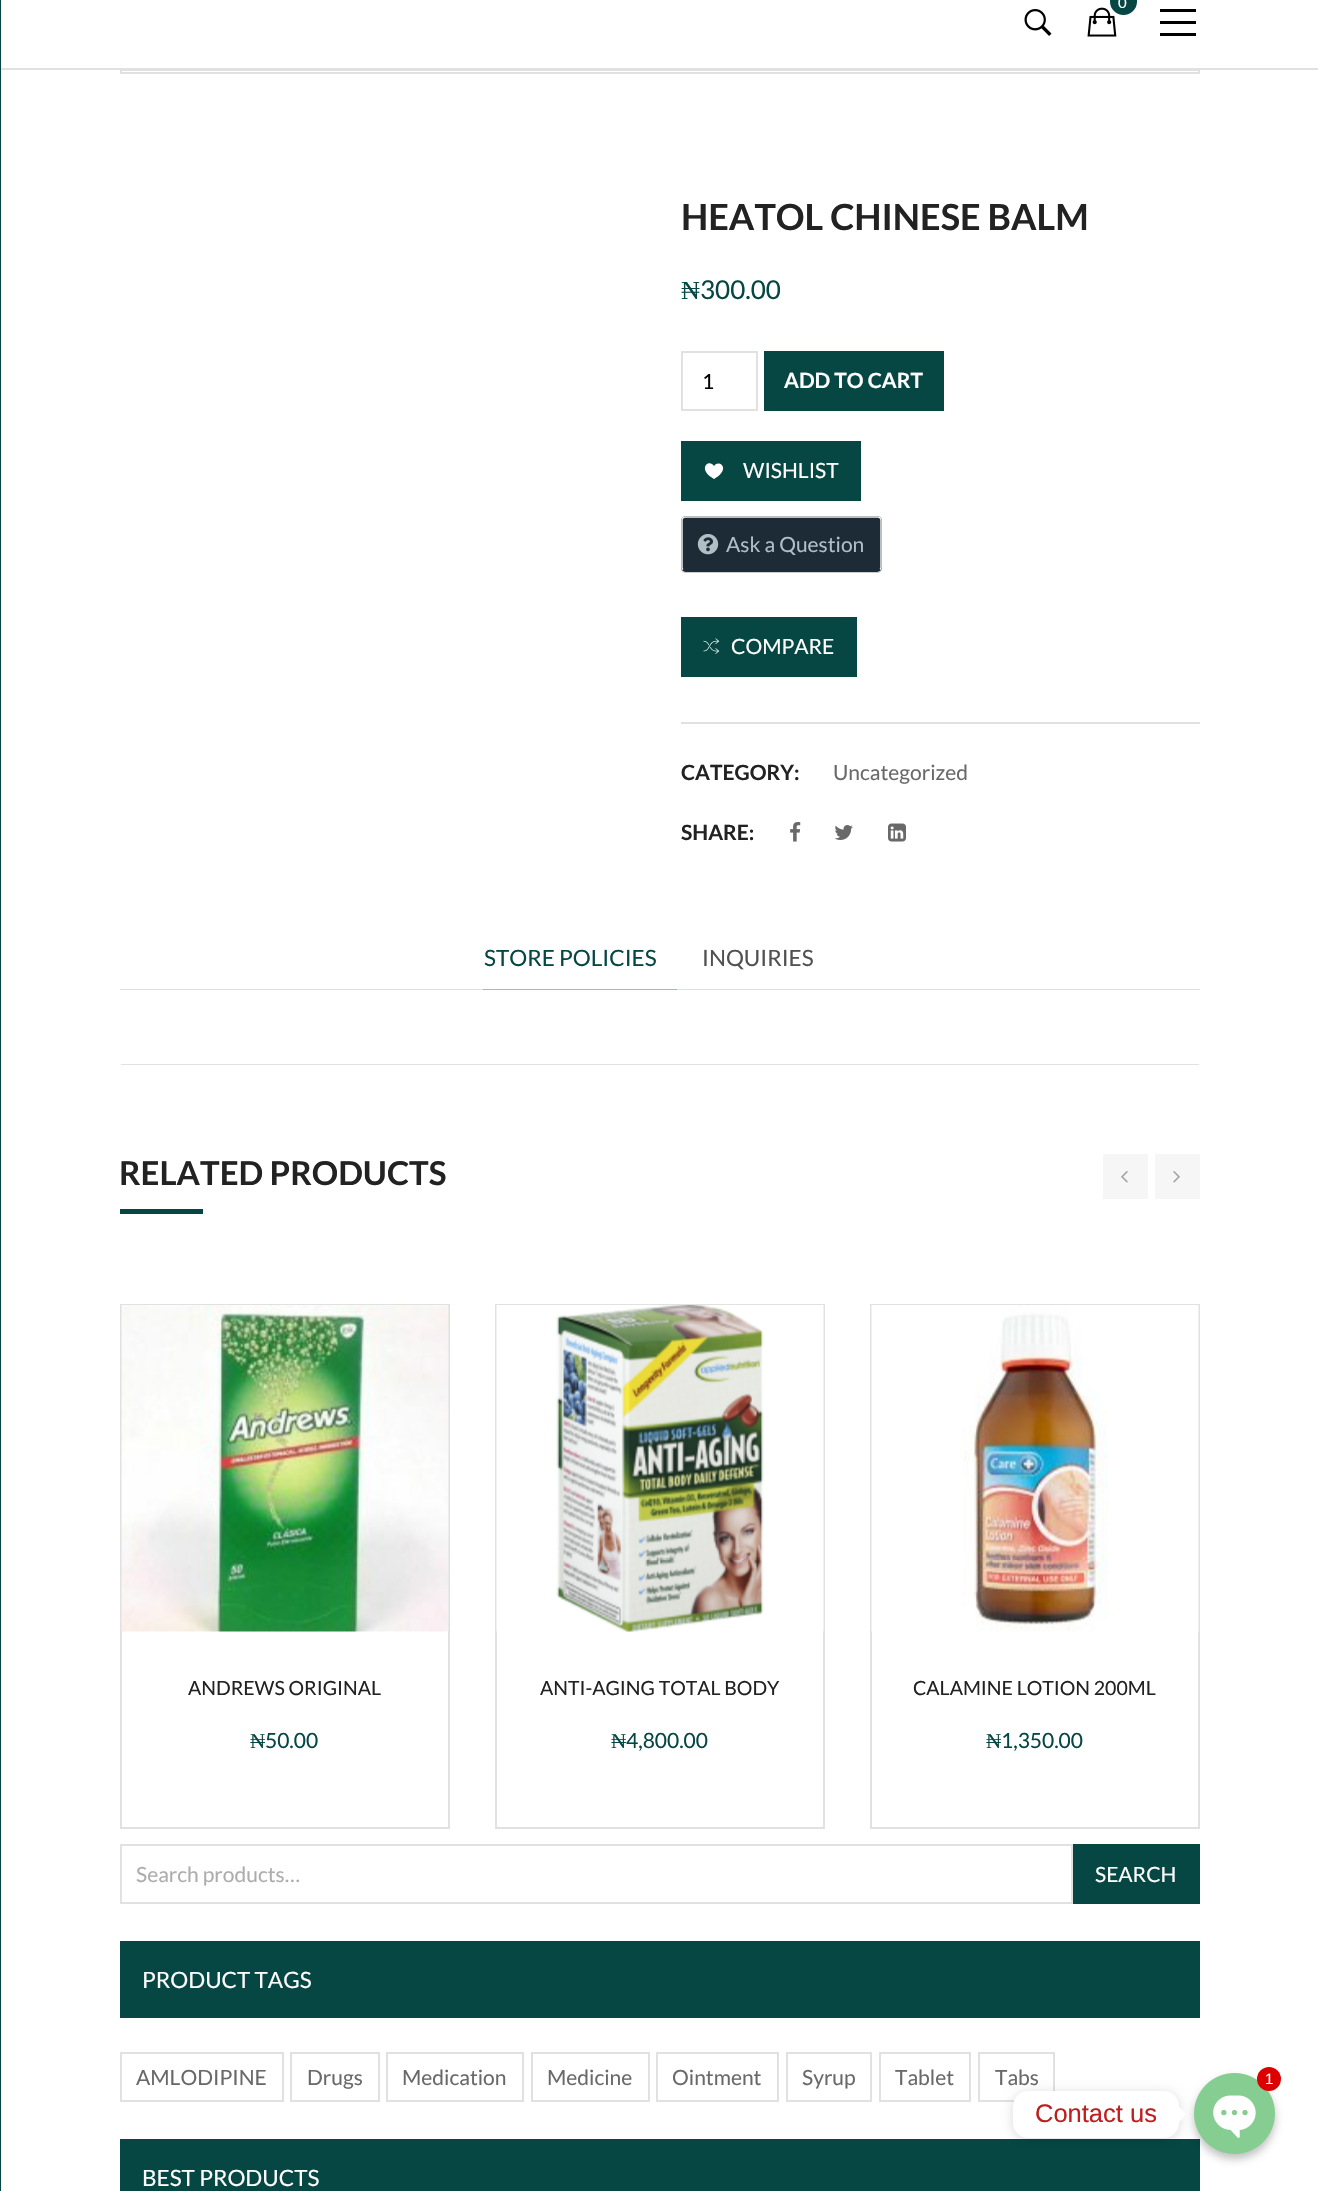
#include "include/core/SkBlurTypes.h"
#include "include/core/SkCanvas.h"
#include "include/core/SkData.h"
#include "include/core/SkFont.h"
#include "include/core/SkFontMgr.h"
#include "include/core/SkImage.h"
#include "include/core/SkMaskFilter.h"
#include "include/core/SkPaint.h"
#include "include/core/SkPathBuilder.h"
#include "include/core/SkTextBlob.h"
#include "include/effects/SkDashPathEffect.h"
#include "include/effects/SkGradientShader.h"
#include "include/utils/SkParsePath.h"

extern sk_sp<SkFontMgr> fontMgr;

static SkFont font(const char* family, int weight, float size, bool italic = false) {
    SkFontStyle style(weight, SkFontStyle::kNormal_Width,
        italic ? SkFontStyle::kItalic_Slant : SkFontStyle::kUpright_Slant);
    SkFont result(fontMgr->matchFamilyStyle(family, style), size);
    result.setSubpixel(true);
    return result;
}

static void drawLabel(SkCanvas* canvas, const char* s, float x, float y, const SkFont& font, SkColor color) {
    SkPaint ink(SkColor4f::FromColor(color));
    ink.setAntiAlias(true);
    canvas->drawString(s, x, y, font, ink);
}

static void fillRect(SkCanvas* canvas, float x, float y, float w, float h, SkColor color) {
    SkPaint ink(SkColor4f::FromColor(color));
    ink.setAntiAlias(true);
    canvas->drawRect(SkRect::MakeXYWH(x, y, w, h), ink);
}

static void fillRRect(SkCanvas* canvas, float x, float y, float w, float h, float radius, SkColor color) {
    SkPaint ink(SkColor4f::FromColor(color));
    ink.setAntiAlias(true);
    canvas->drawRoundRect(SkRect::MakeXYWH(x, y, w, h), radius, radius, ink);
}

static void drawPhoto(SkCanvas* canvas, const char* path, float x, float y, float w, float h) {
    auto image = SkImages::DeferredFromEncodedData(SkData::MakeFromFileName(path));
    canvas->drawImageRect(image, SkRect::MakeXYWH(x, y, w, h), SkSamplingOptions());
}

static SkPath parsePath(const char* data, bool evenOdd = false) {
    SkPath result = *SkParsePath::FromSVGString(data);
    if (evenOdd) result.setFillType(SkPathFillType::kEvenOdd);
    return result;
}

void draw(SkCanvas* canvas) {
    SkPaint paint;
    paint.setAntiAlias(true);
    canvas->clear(0xFFFFFFFF);
    paint.setStroke(true);
    paint.setStrokeWidth(2);
    paint.setColor(0xFFE1E1E1);
    canvas->drawRect(SkRect::MakeXYWH(121, 70, 1078, 3), paint);
    fillRect(canvas, 0, 68, 1318, 2, 0xFFE1E1E1);
    fillRect(canvas, 0, 0, 1, 2191, 0xFF064743);
    drawPhoto(canvas, "assets/img1.png", 1087, 7, 30, 30);
    paint.setStroke(false);
    paint.setColor(0xFF064743);
    canvas->drawCircle(1123.5f, 1.5f, 13.5f, paint);
    SkFont font1 = font("Lato", 400, 15);
    drawLabel(canvas, "0", 1118, 8, font1, 0xFFFFFFFF);
    drawPhoto(canvas, "assets/img2.png", 1024, 9, 28, 27);
    fillRect(canvas, 1160, 9, 36, 3, 0xFF000000);
    fillRect(canvas, 1160, 21, 36, 3, 0xFF000000);
    fillRect(canvas, 1160, 33, 36, 3, 0xFF000000);
    SkFont font2 = font("Lato", 700, 36);
    drawLabel(canvas, "HEATOL CHINESE BALM", 681, 230, font2, 0xFF222222);
    SkFont font3 = font("Liberation Serif", 400, 26);
    drawLabel(canvas, "₦", 681, 299, font3, 0xFF064743);
    SkFont font4 = font("Lato", 400, 26);
    drawLabel(canvas, "300.00", 700, 299, font4, 0xFF064743);
    paint.setStroke(true);
    paint.setColor(0xFFE1E1E1);
    canvas->drawRect(SkRect::MakeXYWH(682, 352, 75, 58), paint);
    SkFont font5 = font("Lato", 400, 21);
    drawLabel(canvas, "1", 702, 389, font5, 0xFF000000);
    fillRect(canvas, 764, 351, 180, 60, 0xFF064743);
    SkFont font6 = font("Lato", 700, 21);
    drawLabel(canvas, "ADD TO CART", 784, 388, font6, 0xFFFFFFFF);
    fillRect(canvas, 681, 441, 180, 60, 0xFF064743);
    paint.setStroke(false);
    paint.setColor(0xFFFFFFFF);
    canvas->drawPath(parsePath("M714 466C718 459.5 729.5 466.5 718.5 476L714 479L709.5 476C699 467 709.5 459 714 466Z"), paint);
    drawLabel(canvas, "WISHLIST", 743, 478, font5, 0xFFFFFFFF);
    paint.setColor(0xFFCCCCCC);
    canvas->drawPath(parsePath("M681 567V568C681 571 683 573 686 573H877C880 573 882 571 882 568V567C882 569 880 572 878 572H686C683 572 681 569 681 567Z"), paint);
    fillRRect(canvas, 681, 516, 201, 56, 5, 0xFF1C2B36);
    paint.setStroke(true);
    paint.setStrokeWidth(1.5f);
    paint.setColor(0xFF1C2B36);
    canvas->drawPath(parsePath("M880 569.5L878 570.5L717.5 571H685.5L683 569.5"), paint);
    paint.setColor(0xFFF0F0F0);
    canvas->drawPath(parsePath("M683 569.5C682 569 682 568 682 567V520.5C682 519.5 682 518.5 683 518C683.5 517 684.5 517 685.5 517H877.5C878.5 517 879.5 517 880 518C881 518.5 881 519.5 881 520.5V567C881 568 881 569 880 569.5"), paint);
    drawPhoto(canvas, "assets/img3.png", 697, 534, 22, 21);
    drawLabel(canvas, "Ask a Question", 726, 552, font5, 0xFFB0BEC5);
    fillRect(canvas, 681, 617, 176, 60, 0xFF064743);
    drawPhoto(canvas, "assets/img4.png", 703, 638, 17, 16);
    drawLabel(canvas, "COMPARE", 731, 654, font5, 0xFFFFFFFF);
    fillRect(canvas, 681, 722, 519, 2, 0xFFE1E1E1);
    drawLabel(canvas, "CATEGORY:", 681, 780, font6, 0xFF222222);
    drawLabel(canvas, "Uncategorized", 833, 780, font5, 0xFF696969);
    drawLabel(canvas, "SHARE:", 681, 840, font6, 0xFF222222);
    drawPhoto(canvas, "assets/img5.png", 790, 822, 11, 20);
    drawPhoto(canvas, "assets/img6.png", 834, 825, 19, 15);
    drawPhoto(canvas, "assets/img7.png", 888, 823, 18, 19);
    fillRect(canvas, 120, 989, 1080, 1, 0xFFE1E1E1);
    fillRect(canvas, 483, 989, 194, 1, 0xFFC8A2CB);
    SkFont font7 = font("Lato", 400, 22.5f);
    drawLabel(canvas, "STORE POLICIES", 484, 966, font7, 0xFF064743);
    drawLabel(canvas, "INQUIRIES", 702, 966, font7, 0xFF515151);
    paint.setStroke(false);
    paint.setColor(0xFFE1E1E1);
    canvas->drawPath(parsePath("M1200 1065H120L122 1064H1198Z"), paint);
    SkFont font8 = font("Lato", 700, 33);
    drawLabel(canvas, "RELATED PRODUCTS", 119, 1185, font8, 0xFF222222);
    fillRect(canvas, 120, 1209, 83, 5, 0xFF064743);
    fillRect(canvas, 1103, 1154, 45, 45, 0xFFF6F6F6);
    drawPhoto(canvas, "assets/img8.png", 1121, 1171, 7, 12);
    fillRect(canvas, 1155, 1154, 45, 45, 0xFFF6F6F6);
    drawPhoto(canvas, "assets/img9.png", 1173, 1171, 7, 12);
    paint.setStroke(true);
    paint.setStrokeWidth(2);
    canvas->drawRect(SkRect::MakeXYWH(121, 1305, 328, 523), paint);
    drawPhoto(canvas, "assets/img10.png", 121, 1305, 328, 327);
    SkFont font9 = font("Lato", 400, 19.5f);
    drawLabel(canvas, "ANDREWS ORIGINAL", 188, 1695, font9, 0xFF222222);
    SkFont font10 = font("Liberation Serif", 400, 21);
    drawLabel(canvas, "₦", 250, 1748, font10, 0xFF064743);
    drawLabel(canvas, "50.00", 265, 1748, font5, 0xFF064743);
    canvas->drawRect(SkRect::MakeXYWH(496, 1305, 328, 523), paint);
    drawPhoto(canvas, "assets/img11.png", 496, 1305, 328, 327);
    drawLabel(canvas, "ANTI-AGING TOTAL BODY", 540, 1695, font9, 0xFF222222);
    drawLabel(canvas, "₦", 611, 1748, font10, 0xFF064743);
    drawLabel(canvas, "4,800.00", 626, 1748, font5, 0xFF064743);
    canvas->drawRect(SkRect::MakeXYWH(871, 1305, 328, 523), paint);
    drawPhoto(canvas, "assets/img12.png", 871, 1305, 328, 327);
    drawLabel(canvas, "CALAMINE LOTION 200ML", 913, 1695, font9, 0xFF222222);
    drawLabel(canvas, "₦", 986, 1748, font10, 0xFF064743);
    drawLabel(canvas, "1,350.00", 1001, 1748, font5, 0xFF064743);
    canvas->drawRect(SkRect::MakeXYWH(121, 1845, 951, 58), paint);
    drawLabel(canvas, "Search products…", 136, 1882, font5, 0xFFAEADAD);
    fillRect(canvas, 1073, 1844, 127, 60, 0xFF064743);
    drawLabel(canvas, "SEARCH", 1095, 1882, font5, 0xFFFFFFFF);
    fillRect(canvas, 120, 1941, 1080, 77, 0xFF064743);
    drawLabel(canvas, "PRODUCT TAGS", 142, 1988, font7, 0xFFFFFFFF);
    canvas->drawRect(SkRect::MakeXYWH(121, 2053, 162, 48), paint);
    drawLabel(canvas, "AMLODIPINE", 136, 2085, font5, 0xFF696969);
    canvas->drawRect(SkRect::MakeXYWH(291, 2053, 88, 48), paint);
    drawLabel(canvas, "Drugs", 307, 2085, font5, 0xFF696969);
    canvas->drawRect(SkRect::MakeXYWH(387, 2053, 136, 48), paint);
    drawLabel(canvas, "Medication", 402, 2085, font5, 0xFF696969);
    canvas->drawRect(SkRect::MakeXYWH(532, 2053, 117, 48), paint);
    drawLabel(canvas, "Medicine", 547, 2085, font5, 0xFF696969);
    canvas->drawRect(SkRect::MakeXYWH(657, 2053, 121, 48), paint);
    drawLabel(canvas, "Ointment", 672, 2085, font5, 0xFF696969);
    canvas->drawRect(SkRect::MakeXYWH(787, 2053, 84, 48), paint);
    drawLabel(canvas, "Syrup", 802, 2085, font5, 0xFF696969);
    canvas->drawRect(SkRect::MakeXYWH(880, 2053, 90, 48), paint);
    drawLabel(canvas, "Tablet", 895, 2085, font5, 0xFF696969);
    canvas->drawRect(SkRect::MakeXYWH(979, 2053, 75, 48), paint);
    drawLabel(canvas, "Tabs", 995, 2085, font5, 0xFF696969);
    fillRect(canvas, 120, 2139, 1080, 52, 0xFF064743);
    drawLabel(canvas, "BEST PRODUCTS", 142, 2186, font7, 0xFFFFFFFF);
    paint.setStroke(false);
    paint.setColor(0x26000000);
    paint.setMaskFilter(SkMaskFilter::MakeBlur(kNormal_SkBlurStyle, 6));
    canvas->drawRoundRect(SkRect::MakeXYWH(1013, 2093, 166, 46), 15, 15, paint);
    paint.setMaskFilter(nullptr);
    paint.setColor(0xFFFFFFFF);
    canvas->drawPath(parsePath("M1179 2122V2107L1186.5 2114Z"), paint);
    paint.setColor(0x40000000);
    paint.setMaskFilter(SkMaskFilter::MakeBlur(kNormal_SkBlurStyle, 4.5f));
    canvas->drawRoundRect(SkRect::MakeXYWH(1194, 2078, 81, 81), 40.5f, 40.5f, paint);
    paint.setMaskFilter(nullptr);
    drawPhoto(canvas, "assets/img13.png", 1194, 2073, 81, 81);
    paint.setColor(0xFFDD0000);
    canvas->drawCircle(1269, 2079, 12, paint);
    SkFont font11 = font("Liberation Sans", 400, 15);
    drawLabel(canvas, "1", 1265, 2084, font11, 0xFFFFFFFF);
    fillRRect(canvas, 1013, 2091, 166, 47, 15, 0xFFFFFFFF);
    SkFont font12 = font("Liberation Sans", 400, 25.5f);
    drawLabel(canvas, "Contact us", 1035, 2122, font12, 0xFFC01E1E);
}
